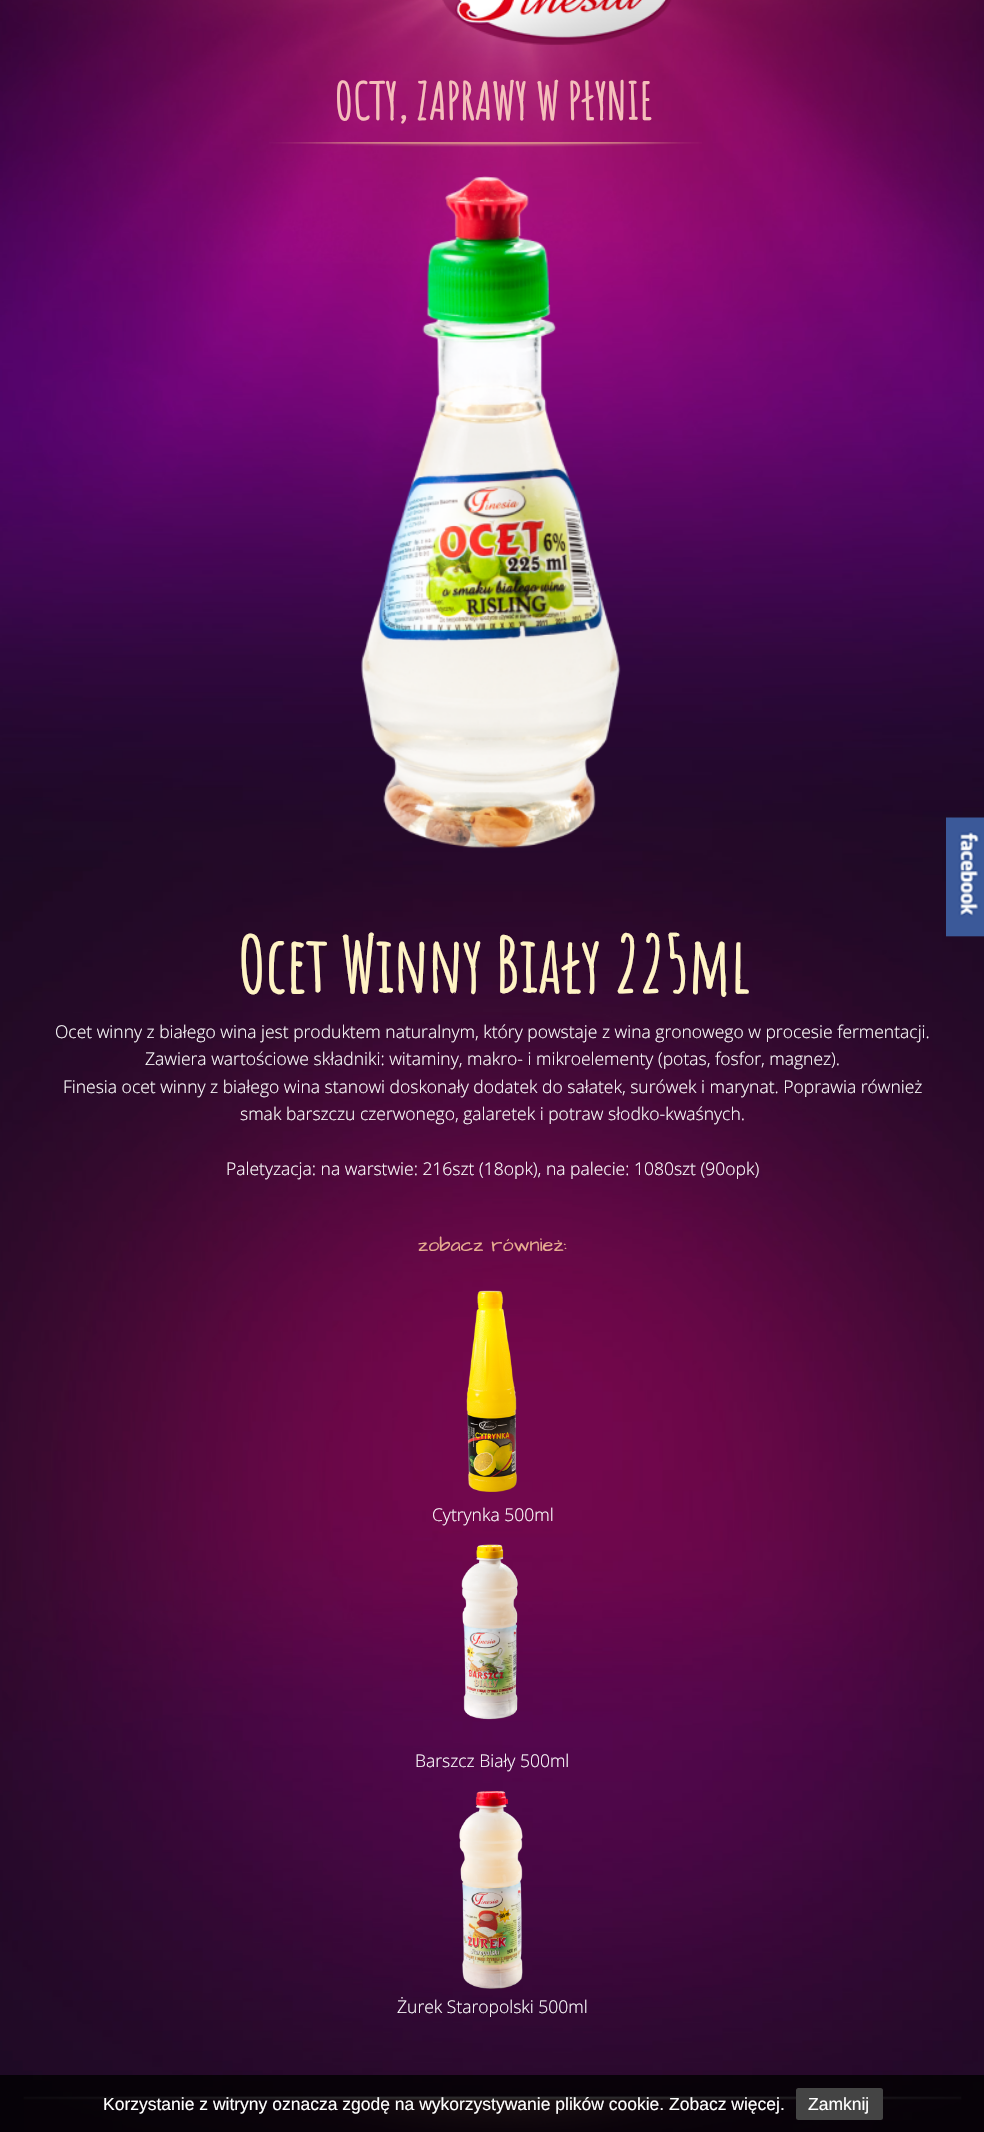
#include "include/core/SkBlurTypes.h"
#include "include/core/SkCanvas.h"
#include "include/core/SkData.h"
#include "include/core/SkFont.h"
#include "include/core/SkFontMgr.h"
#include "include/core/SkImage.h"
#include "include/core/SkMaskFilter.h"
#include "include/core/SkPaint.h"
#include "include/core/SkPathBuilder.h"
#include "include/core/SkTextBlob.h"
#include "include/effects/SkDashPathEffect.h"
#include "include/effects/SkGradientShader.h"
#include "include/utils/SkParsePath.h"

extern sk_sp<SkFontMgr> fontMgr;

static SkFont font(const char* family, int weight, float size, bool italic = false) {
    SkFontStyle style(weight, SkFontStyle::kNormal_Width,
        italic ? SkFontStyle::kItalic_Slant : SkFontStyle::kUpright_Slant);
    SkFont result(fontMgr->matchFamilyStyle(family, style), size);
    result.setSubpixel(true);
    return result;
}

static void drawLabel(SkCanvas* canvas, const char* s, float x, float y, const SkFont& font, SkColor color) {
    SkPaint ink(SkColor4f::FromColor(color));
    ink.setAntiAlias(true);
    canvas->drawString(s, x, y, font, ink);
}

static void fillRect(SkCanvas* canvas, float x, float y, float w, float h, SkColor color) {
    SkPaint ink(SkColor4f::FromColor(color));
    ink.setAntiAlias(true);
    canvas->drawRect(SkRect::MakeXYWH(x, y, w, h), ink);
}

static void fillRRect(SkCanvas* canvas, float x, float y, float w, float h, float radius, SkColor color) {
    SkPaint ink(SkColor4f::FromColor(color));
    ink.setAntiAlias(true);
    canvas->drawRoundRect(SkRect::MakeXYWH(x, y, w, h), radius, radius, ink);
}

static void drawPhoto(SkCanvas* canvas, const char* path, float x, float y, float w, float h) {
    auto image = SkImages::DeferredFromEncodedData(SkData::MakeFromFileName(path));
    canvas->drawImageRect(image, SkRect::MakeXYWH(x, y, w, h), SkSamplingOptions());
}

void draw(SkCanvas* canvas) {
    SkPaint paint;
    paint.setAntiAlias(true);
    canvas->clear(0xFFFFFFFF);
    drawPhoto(canvas, "assets/img1.png", 0, 0, 984, 2132);
    drawPhoto(canvas, "assets/img2.png", 442, 0, 230, 45);
    drawPhoto(canvas, "assets/img3.png", 269, 142, 433, 5);
    SkFont font1 = font("Amatic SC", 700, 50);
    drawLabel(canvas, "OCTY, ZAPRAWY W PŁYNIE", 334, 120, font1, 0xFFF5BEBB);
    drawPhoto(canvas, "assets/img4.png", 361, 176, 260, 673);
    SkFont font2 = font("Amatic SC", 700, 75);
    drawLabel(canvas, "Ocet Winny Biały 225ml", 237, 993, font2, 0xFFFFF3C4);
    SkFont font3 = font("Open Sans", 300, 17.5f);
    drawLabel(canvas, "Ocet winny z białego wina jest produktem naturalnym, który powstaje z wina gronowego w procesie fermentacji.", 55, 1038, font3, 0xFFFFFFFF);
    drawLabel(canvas, "Zawiera wartościowe składniki: witaminy, makro- i mikroelementy (potas, fosfor, magnez).", 145, 1065, font3, 0xFFFFFFFF);
    drawLabel(canvas, "Finesia ocet winny z białego wina stanowi doskonały dodatek do sałatek, surówek i marynat. Poprawia również", 63, 1093, font3, 0xFFFFFFFF);
    drawLabel(canvas, "smak barszczu czerwonego, galaretek i potraw słodko-kwaśnych.", 240, 1120, font3, 0xFFFFFFFF);
    drawLabel(canvas, "Paletyzacja: na warstwie: 216szt (18opk), na palecie: 1080szt (90opk)", 226, 1175, font3, 0xFFFFFFFF);
    SkFont font4 = font("Architects Daughter", 400, 20);
    drawLabel(canvas, "zobacz również:", 418, 1251, font4, 0xFFE6AB8F);
    drawPhoto(canvas, "assets/img5.png", 466, 1290, 51, 202);
    drawLabel(canvas, "Cytrynka 500ml", 432, 1521, font3, 0xFFFFFFFF);
    drawPhoto(canvas, "assets/img6.png", 461, 1544, 57, 176);
    drawLabel(canvas, "Barszcz Biały 500ml", 415, 1767, font3, 0xFFFFFFFF);
    drawPhoto(canvas, "assets/img7.png", 459, 1791, 64, 198);
    drawLabel(canvas, "Żurek Staropolski 500ml", 397, 2013, font3, 0xFFFFFFFF);
    drawPhoto(canvas, "assets/img8.png", 946, 817, 38, 120);
    drawPhoto(canvas, "assets/img9.png", 23, 2096, 939, 36);
    fillRect(canvas, 0, 2075, 984, 57, 0xCC000000);
    SkFont font5 = font("Liberation Sans", 400, 17.5f);
    drawLabel(canvas, "Korzystanie z witryny oznacza zgodę na wykorzystywanie plików cookie. Zobacz więcej.", 103, 2110, font5, 0xFFFFFFFF);
    fillRRect(canvas, 796, 2088, 87, 32, 2.5f, 0xFF444444);
    drawLabel(canvas, "Zamknij", 808, 2110, font5, 0xFFFFFFFF);
}
